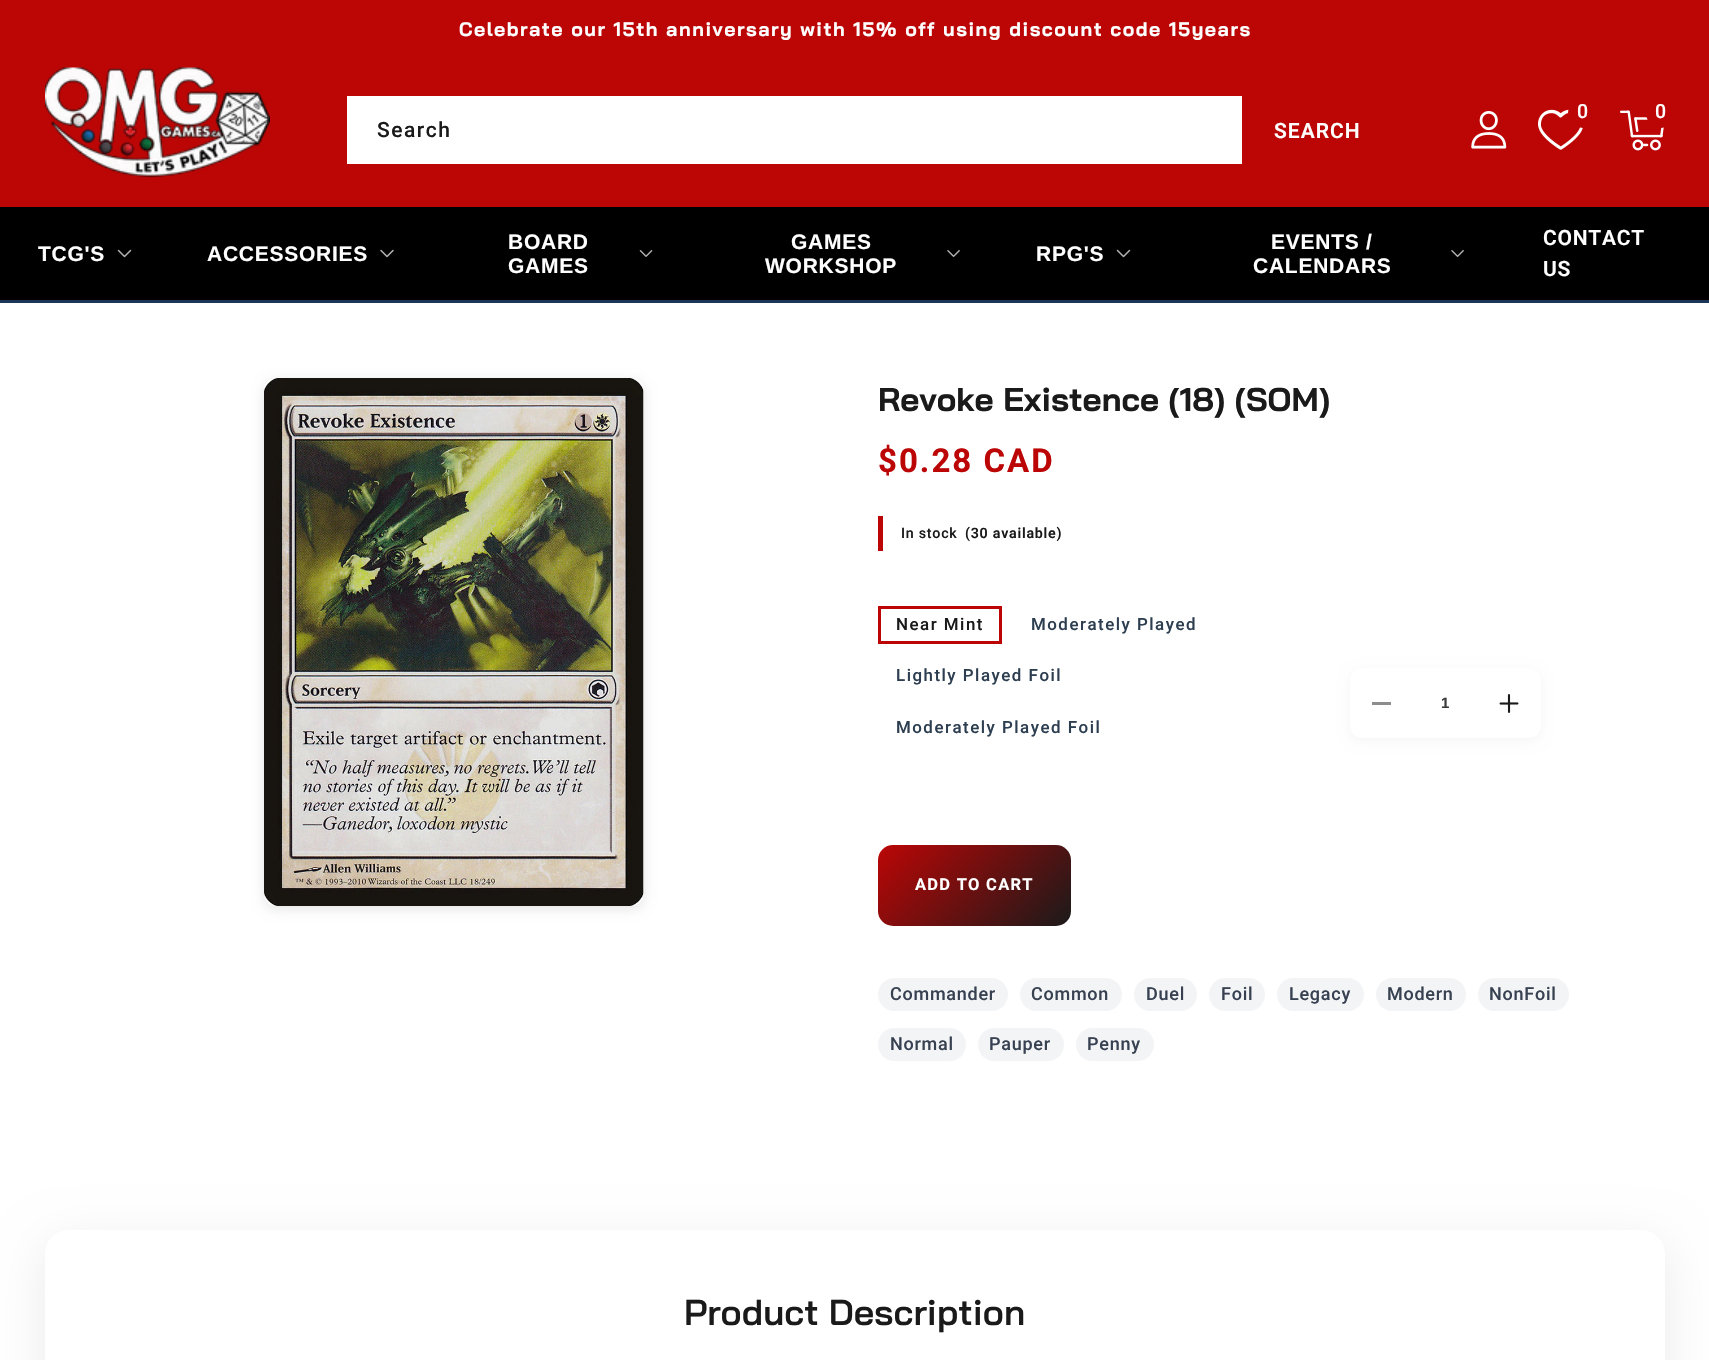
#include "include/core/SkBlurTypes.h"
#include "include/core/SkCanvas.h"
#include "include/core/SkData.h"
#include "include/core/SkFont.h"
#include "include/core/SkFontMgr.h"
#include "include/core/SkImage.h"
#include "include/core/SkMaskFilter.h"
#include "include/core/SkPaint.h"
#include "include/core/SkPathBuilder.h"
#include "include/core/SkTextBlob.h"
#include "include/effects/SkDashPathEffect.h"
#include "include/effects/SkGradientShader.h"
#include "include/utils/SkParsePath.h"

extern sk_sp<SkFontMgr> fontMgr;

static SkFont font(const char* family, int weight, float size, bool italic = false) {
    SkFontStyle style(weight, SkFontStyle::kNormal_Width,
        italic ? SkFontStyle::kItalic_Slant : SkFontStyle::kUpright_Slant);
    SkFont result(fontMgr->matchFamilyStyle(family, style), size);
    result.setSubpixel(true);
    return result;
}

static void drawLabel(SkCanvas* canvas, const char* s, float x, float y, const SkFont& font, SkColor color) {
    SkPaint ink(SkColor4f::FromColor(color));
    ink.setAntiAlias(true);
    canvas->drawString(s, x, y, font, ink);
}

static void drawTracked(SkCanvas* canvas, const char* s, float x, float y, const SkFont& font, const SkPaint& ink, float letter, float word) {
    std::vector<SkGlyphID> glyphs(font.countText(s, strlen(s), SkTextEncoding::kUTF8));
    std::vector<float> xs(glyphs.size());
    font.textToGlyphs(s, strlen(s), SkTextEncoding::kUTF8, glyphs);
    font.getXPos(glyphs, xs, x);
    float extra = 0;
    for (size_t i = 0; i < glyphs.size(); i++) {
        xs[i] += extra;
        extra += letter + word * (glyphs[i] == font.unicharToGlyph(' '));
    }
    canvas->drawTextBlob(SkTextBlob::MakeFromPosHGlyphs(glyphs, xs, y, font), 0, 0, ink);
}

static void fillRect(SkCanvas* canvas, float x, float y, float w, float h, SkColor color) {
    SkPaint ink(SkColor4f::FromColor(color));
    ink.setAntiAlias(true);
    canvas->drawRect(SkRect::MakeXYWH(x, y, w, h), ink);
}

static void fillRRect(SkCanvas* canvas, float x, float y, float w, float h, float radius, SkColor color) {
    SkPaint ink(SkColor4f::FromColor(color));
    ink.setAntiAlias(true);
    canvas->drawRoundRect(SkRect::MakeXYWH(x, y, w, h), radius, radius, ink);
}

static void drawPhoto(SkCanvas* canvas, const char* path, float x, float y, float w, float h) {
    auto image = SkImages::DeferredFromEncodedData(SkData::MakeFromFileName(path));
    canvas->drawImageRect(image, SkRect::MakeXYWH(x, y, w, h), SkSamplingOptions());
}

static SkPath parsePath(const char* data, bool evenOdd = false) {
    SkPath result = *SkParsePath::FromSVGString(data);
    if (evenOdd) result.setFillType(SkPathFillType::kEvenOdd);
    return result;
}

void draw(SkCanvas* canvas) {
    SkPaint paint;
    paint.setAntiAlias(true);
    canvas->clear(0xFFFFFFFF);
    fillRect(canvas, 0, 0, 1709, 207, 0xFFBC0606);
    SkFont font1 = font("Bai Jamjuree", 700, 19.5f);
    paint.setColor(0xFFFFFFFF);
    drawTracked(canvas, "Celebrate our 15th anniversary with 15% off using discount code 15years", 459, 36, font1, paint, 1.5f, 0);
    drawPhoto(canvas, "assets/img1.png", 45, 67, 225, 111);
    drawPhoto(canvas, "assets/img2.png", 1471, 111, 36, 38);
    drawPhoto(canvas, "assets/img3.png", 1538, 109, 45, 41);
    paint.setColor(0xFFBC0606);
    canvas->drawCircle(1583, 113, 15, paint);
    SkFont font2 = font("Roboto", 500, 19.5f);
    paint.setColor(0xFFFFFFFF);
    drawTracked(canvas, "0", 1577, 118, font2, paint, 0.75f, 0);
    drawPhoto(canvas, "assets/img4.png", 1620, 110, 44, 41);
    paint.setColor(0xFFBC0606);
    canvas->drawCircle(1661, 113, 15, paint);
    paint.setColor(0xFFFFFFFF);
    drawTracked(canvas, "0", 1655, 118, font2, paint, 0.75f, 0);
    fillRect(canvas, 347, 96, 895, 68, 0xFFFFFFFF);
    SkFont font3 = font("Roboto", 500, 21);
    paint.setColor(0xFF1A1A1A);
    drawTracked(canvas, "Search", 377, 137, font3, paint, 1.5f, 0);
    SkFont font4 = font("Roboto", 600, 21);
    paint.setColor(0xFFFFFFFF);
    drawTracked(canvas, "SEARCH", 1274, 138, font4, paint, 1, 0);
    fillRect(canvas, 0, 207, 1709, 93, 0xFF000000);
    fillRect(canvas, 0, 300, 1709, 3, 0xFF1D3557);
    SkFont font5 = font("Liberation Sans", 700, 21);
    drawTracked(canvas, "TCG'S", 38, 261, font5, paint, 0.75f, 0);
    drawPhoto(canvas, "assets/img5.png", 117, 249, 15, 9);
    drawTracked(canvas, "ACCESSORIES", 207, 261, font5, paint, 0.75f, 0);
    drawPhoto(canvas, "assets/img6.png", 380, 249, 14, 9);
    drawTracked(canvas, "BOARD", 508, 249, font5, paint, 0.75f, 0);
    drawPhoto(canvas, "assets/img7.png", 639, 250, 14, 7);
    drawTracked(canvas, "GAMES", 508, 273, font5, paint, 0.75f, 0);
    drawTracked(canvas, "GAMES", 791, 249, font5, paint, 0.75f, 0);
    drawPhoto(canvas, "assets/img8.png", 947, 250, 13, 7);
    drawTracked(canvas, "WORKSHOP", 765, 273, font5, paint, 0.75f, 0);
    drawTracked(canvas, "RPG'S", 1036, 261, font5, paint, 0.75f, 0);
    drawPhoto(canvas, "assets/img5.png", 1116, 249, 15, 9);
    drawTracked(canvas, "EVENTS /", 1271, 249, font5, paint, 0.75f, 0);
    drawPhoto(canvas, "assets/img9.png", 1451, 250, 13, 7);
    drawTracked(canvas, "CALENDARS", 1253, 273, font5, paint, 0.75f, 0);
    drawTracked(canvas, "CONTACT", 1543, 245, font4, paint, 0.75f, 0);
    drawTracked(canvas, "US", 1543, 276, font4, paint, 0.75f, 0);
    paint.setColor(0x1A000000);
    paint.setMaskFilter(SkMaskFilter::MakeBlur(kNormal_SkBlurStyle, 6));
    canvas->drawRoundRect(SkRect::MakeXYWH(264, 381, 380, 528), 12, 12, paint);
    paint.setMaskFilter(nullptr);
    drawPhoto(canvas, "assets/img10.png", 264, 378, 380, 528);
    SkFont font6 = font("Bai Jamjuree", 700, 33);
    drawLabel(canvas, "Revoke Existence (18) (SOM)", 878, 411, font6, 0xFF1A1A1A);
    SkFont font7 = font("Roboto", 700, 33);
    paint.setColor(0xFFBC0606);
    drawTracked(canvas, "$0.28 CAD", 878, 472, font7, paint, 2, 0);
    fillRect(canvas, 878, 516, 5, 35, 0xFFBC0606);
    SkFont font8 = font("Roboto", 500, 14.25f);
    paint.setColor(0xFF1A1A1A);
    drawTracked(canvas, "In stock", 901, 538, font8, paint, 0.75f, 0);
    SkFont font9 = font("Roboto", 600, 14.25f);
    drawTracked(canvas, "(30 available)", 965, 538, font9, paint, 0.75f, 0);
    paint.setStroke(true);
    paint.setStrokeWidth(3);
    paint.setColor(0xFFBC0606);
    canvas->drawRect(SkRect::MakeXYWH(879.5f, 607.5f, 121, 35), paint);
    SkFont font10 = font("Roboto", 500, 16.9f);
    paint.setStroke(false);
    paint.setColor(0xFF1A1A1A);
    drawTracked(canvas, "Near Mint", 896, 630, font10, paint, 1.5f, 0);
    paint.setColor(0xFF2C3E50);
    drawTracked(canvas, "Moderately Played", 1031, 630, font10, paint, 1.5f, 0);
    drawTracked(canvas, "Lightly Played Foil", 896, 681, font10, paint, 1.5f, 0);
    drawTracked(canvas, "Moderately Played Foil", 896, 733, font10, paint, 1.5f, 0);
    paint.setColor(0x0A000000);
    paint.setMaskFilter(SkMaskFilter::MakeBlur(kNormal_SkBlurStyle, 6));
    canvas->drawRoundRect(SkRect::MakeXYWH(1350, 671, 191, 70), 12, 12, paint);
    paint.setMaskFilter(nullptr);
    fillRRect(canvas, 1350, 668, 191, 70, 12, 0xFFFFFFFF);
    fillRect(canvas, 1372, 702, 19, 3, 0xFF8D8D8D);
    SkFont font11 = font("Liberation Sans", 700, 15);
    drawLabel(canvas, "1", 1441, 708, font11, 0xFF3C3C3C);
    drawPhoto(canvas, "assets/img11.png", 1499, 694, 20, 19);
    {
        const SkColor colors[] = {0xFFBC0606, 0xFF1A1A1A};
        const float stops[] = {0, 1};
        const SkPoint ends[] = {{906, 816}, {1043, 954}};
        paint.setShader(SkGradientShader::MakeLinear(ends, colors, stops, 2, SkTileMode::kClamp));
        paint.setAlpha(255);
    }
    canvas->drawRoundRect(SkRect::MakeXYWH(878, 845, 193, 81), 15, 15, paint);
    SkFont font12 = font("Roboto", 700, 16.5f);
    paint.setShader(nullptr);
    paint.setColor(0xFFFFFFFF);
    drawTracked(canvas, "ADD TO CART", 915, 890, font12, paint, 1.25f, 0);
    fillRRect(canvas, 878, 978, 130, 33, 16.5f, 0xFFF3F4F6);
    SkFont font13 = font("Roboto", 500, 18);
    paint.setColor(0xFF374151);
    drawTracked(canvas, "Commander", 890, 1000, font13, paint, 0.75f, 0);
    fillRRect(canvas, 1020, 978, 102, 33, 16.5f, 0xFFF3F4F6);
    drawTracked(canvas, "Common", 1031, 1000, font13, paint, 0.75f, 0);
    fillRRect(canvas, 1134, 978, 63, 33, 16.5f, 0xFFF3F4F6);
    drawTracked(canvas, "Duel", 1146, 1000, font13, paint, 0.75f, 0);
    fillRRect(canvas, 1209, 978, 56, 33, 16.5f, 0xFFF3F4F6);
    drawTracked(canvas, "Foil", 1221, 1000, font13, paint, 0.75f, 0);
    fillRRect(canvas, 1277, 978, 87, 33, 16.5f, 0xFFF3F4F6);
    drawTracked(canvas, "Legacy", 1289, 1000, font13, paint, 0.75f, 0);
    fillRRect(canvas, 1376, 978, 90, 33, 16.5f, 0xFFF3F4F6);
    drawTracked(canvas, "Modern", 1387, 1000, font13, paint, 0.75f, 0);
    fillRRect(canvas, 1478, 978, 91, 33, 16.5f, 0xFFF3F4F6);
    drawTracked(canvas, "NonFoil", 1489, 1000, font13, paint, 0.75f, 0);
    fillRRect(canvas, 878, 1028, 88, 33, 16.5f, 0xFFF3F4F6);
    drawTracked(canvas, "Normal", 890, 1050, font13, paint, 0.75f, 0);
    fillRRect(canvas, 978, 1028, 86, 33, 16.5f, 0xFFF3F4F6);
    drawTracked(canvas, "Pauper", 989, 1050, font13, paint, 0.75f, 0);
    fillRRect(canvas, 1076, 1028, 78, 33, 16.5f, 0xFFF3F4F6);
    drawTracked(canvas, "Penny", 1087, 1050, font13, paint, 0.75f, 0);
    canvas->save();
    canvas->clipPath(parsePath("M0 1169H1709V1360H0ZM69 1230H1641C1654.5 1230 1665 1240.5 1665 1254V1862C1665 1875.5 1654.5 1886 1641 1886H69C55.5 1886 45 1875.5 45 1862V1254C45 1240.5 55.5 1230 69 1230Z", true), true);
    paint.setColor(0x14000000);
    paint.setMaskFilter(SkMaskFilter::MakeBlur(kNormal_SkBlurStyle, 24));
    canvas->drawRoundRect(SkRect::MakeXYWH(45, 1242, 1620, 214), 24, 24, paint);
    paint.setMaskFilter(nullptr);
    canvas->restore();
    SkFont font14 = font("Bai Jamjuree", 600, 36);
    drawLabel(canvas, "Product Description", 684, 1325, font14, 0xFF1A1A1A);
}
